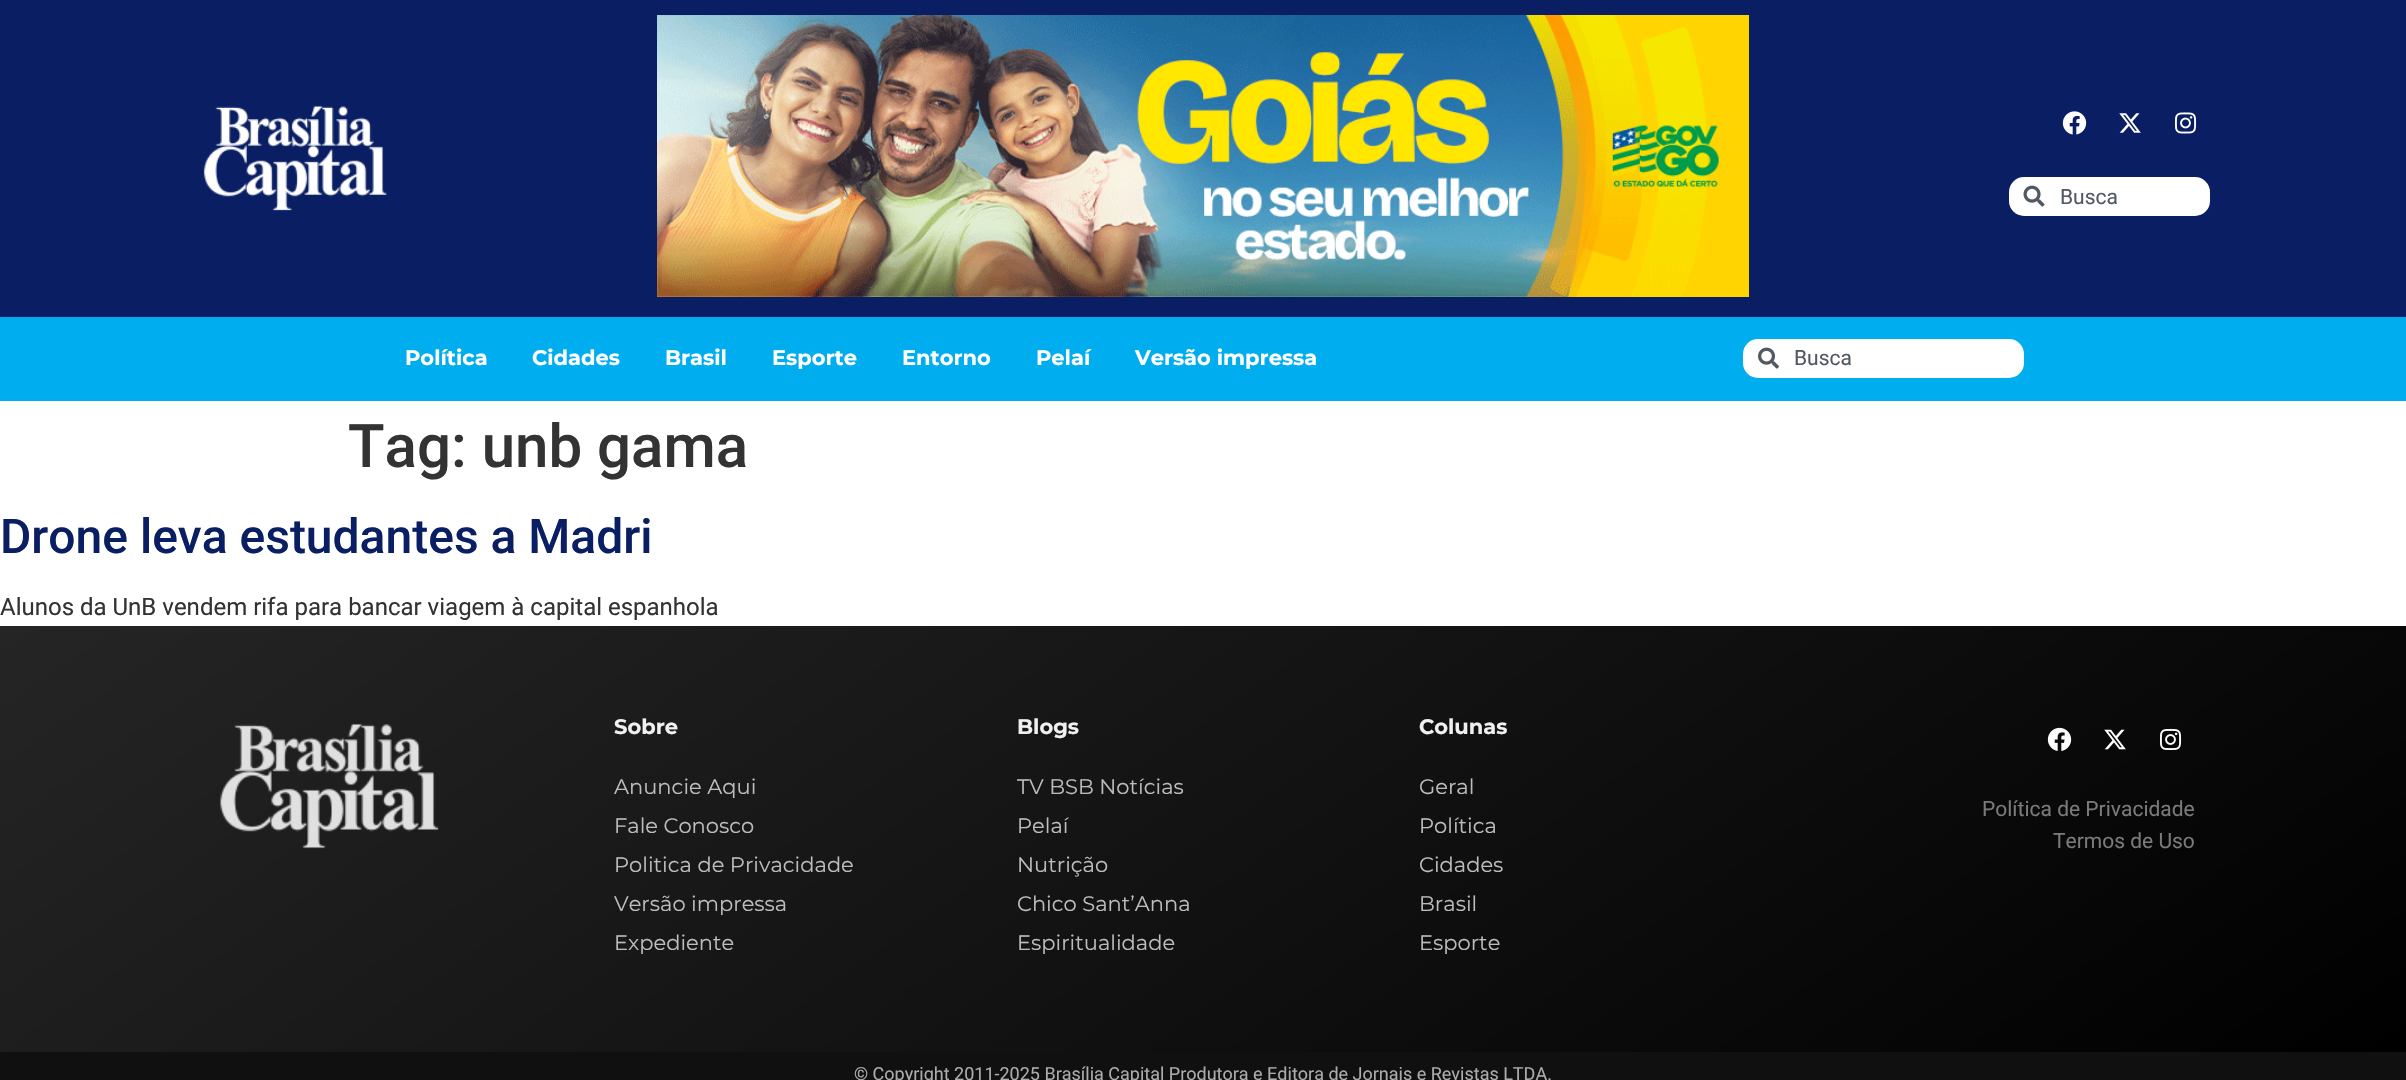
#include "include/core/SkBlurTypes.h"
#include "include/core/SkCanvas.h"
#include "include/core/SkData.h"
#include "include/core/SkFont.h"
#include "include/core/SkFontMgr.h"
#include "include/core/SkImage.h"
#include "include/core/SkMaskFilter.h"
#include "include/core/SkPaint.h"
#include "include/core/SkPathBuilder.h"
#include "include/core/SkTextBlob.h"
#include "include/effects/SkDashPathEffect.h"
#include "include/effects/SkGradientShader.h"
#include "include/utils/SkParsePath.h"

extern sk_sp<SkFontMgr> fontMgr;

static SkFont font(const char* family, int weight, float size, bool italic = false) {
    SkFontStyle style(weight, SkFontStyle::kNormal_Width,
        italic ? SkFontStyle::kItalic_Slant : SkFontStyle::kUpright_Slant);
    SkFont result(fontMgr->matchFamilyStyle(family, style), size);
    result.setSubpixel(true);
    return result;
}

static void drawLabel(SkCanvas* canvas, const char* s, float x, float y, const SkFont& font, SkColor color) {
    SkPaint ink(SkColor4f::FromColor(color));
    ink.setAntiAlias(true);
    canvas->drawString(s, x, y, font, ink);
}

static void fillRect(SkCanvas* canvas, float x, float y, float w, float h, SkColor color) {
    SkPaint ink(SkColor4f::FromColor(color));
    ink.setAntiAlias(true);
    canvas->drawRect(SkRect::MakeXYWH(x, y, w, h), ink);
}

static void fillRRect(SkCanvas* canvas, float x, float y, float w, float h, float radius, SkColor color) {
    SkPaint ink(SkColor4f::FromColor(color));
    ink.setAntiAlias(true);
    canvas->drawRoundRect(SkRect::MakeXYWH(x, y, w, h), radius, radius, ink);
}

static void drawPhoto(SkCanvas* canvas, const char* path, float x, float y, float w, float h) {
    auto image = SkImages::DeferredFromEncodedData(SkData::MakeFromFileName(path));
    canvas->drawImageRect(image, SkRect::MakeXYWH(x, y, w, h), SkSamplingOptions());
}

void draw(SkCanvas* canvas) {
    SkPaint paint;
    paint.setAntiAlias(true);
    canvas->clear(0xFFFFFFFF);
    fillRect(canvas, 0, 0, 2406, 317, 0xFF0A1F63);
    drawPhoto(canvas, "assets/img1.png", 203, 105, 184, 106);
    drawPhoto(canvas, "assets/img2.png", 657, 15, 1092, 282);
    drawPhoto(canvas, "assets/img3.png", 2062, 111, 25, 24);
    drawPhoto(canvas, "assets/img4.png", 2119, 113, 22, 20);
    drawPhoto(canvas, "assets/img5.png", 2175, 112, 22, 22);
    fillRRect(canvas, 2009, 177, 201, 39, 15, 0xFFFFFFFF);
    drawPhoto(canvas, "assets/img6.png", 2023, 185, 22, 22);
    SkFont font1 = font("Roboto", 400, 21);
    drawLabel(canvas, "Busca", 2060, 204, font1, 0xFF515962);
    fillRect(canvas, 0, 317, 2406, 84, 0xFF00ADEF);
    SkFont font2 = font("Montserrat", 700, 21);
    drawLabel(canvas, "Política", 405, 365, font2, 0xFFFFFFFF);
    drawLabel(canvas, "Cidades", 532, 365, font2, 0xFFFFFFFF);
    drawLabel(canvas, "Brasil", 665, 365, font2, 0xFFFFFFFF);
    drawLabel(canvas, "Esporte", 772, 365, font2, 0xFFFFFFFF);
    drawLabel(canvas, "Entorno", 902, 365, font2, 0xFFFFFFFF);
    drawLabel(canvas, "Pelaí", 1036, 365, font2, 0xFFFFFFFF);
    drawLabel(canvas, "Versão impressa", 1135, 365, font2, 0xFFFFFFFF);
    fillRRect(canvas, 1743, 339, 281, 39, 15, 0xFFFFFFFF);
    drawPhoto(canvas, "assets/img7.png", 1758, 347, 21, 22);
    drawLabel(canvas, "Busca", 1794, 365, font1, 0xFF515962);
    SkFont font3 = font("Roboto", 500, 60);
    drawLabel(canvas, "Tag: unb gama", 348, 467, font3, 0xFF333333);
    SkFont font4 = font("Roboto", 500, 48);
    drawLabel(canvas, "Drone leva estudantes a Madri", 0, 553, font4, 0xFF0A1F63);
    SkFont font5 = font("Roboto", 400, 24);
    drawLabel(canvas, "Alunos da UnB vendem rifa para bancar viagem à capital espanhola", 0, 615, font5, 0xFF333333);
    {
        const SkColor colors[] = {0xFF252525, 0xFF000000};
        const float stops[] = {0, 1};
        const SkPoint ends[] = {{707, 130}, {1699, 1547}};
        paint.setShader(SkGradientShader::MakeLinear(ends, colors, stops, 2, SkTileMode::kClamp));
        paint.setAlpha(255);
    }
    canvas->drawRect(SkRect::MakeXYWH(0, 626, 2406, 426), paint);
    drawPhoto(canvas, "assets/img8.png", 220, 723, 219, 126);
    drawLabel(canvas, "Sobre", 614, 734, font2, 0xFFF0F0F0);
    SkFont font6 = font("Montserrat", 400, 21);
    drawLabel(canvas, "Anuncie Aqui", 614, 794, font6, 0xFFBDBDBD);
    drawLabel(canvas, "Fale Conosco", 614, 833, font6, 0xFFBDBDBD);
    drawLabel(canvas, "Politica de Privacidade", 614, 872, font6, 0xFFBDBDBD);
    drawLabel(canvas, "Versão impressa", 614, 911, font6, 0xFFBDBDBD);
    drawLabel(canvas, "Expediente", 614, 950, font6, 0xFFBDBDBD);
    drawLabel(canvas, "Blogs", 1017, 734, font2, 0xFFF0F0F0);
    drawLabel(canvas, "TV BSB Notícias", 1017, 794, font6, 0xFFBDBDBD);
    drawLabel(canvas, "Pelaí", 1017, 833, font6, 0xFFBDBDBD);
    drawLabel(canvas, "Nutrição", 1017, 872, font6, 0xFFBDBDBD);
    drawLabel(canvas, "Chico Sant’Anna", 1017, 911, font6, 0xFFBDBDBD);
    drawLabel(canvas, "Espiritualidade", 1017, 950, font6, 0xFFBDBDBD);
    drawLabel(canvas, "Colunas", 1419, 734, font2, 0xFFF0F0F0);
    drawLabel(canvas, "Geral", 1419, 794, font6, 0xFFBDBDBD);
    drawLabel(canvas, "Política", 1419, 833, font6, 0xFFBDBDBD);
    drawLabel(canvas, "Cidades", 1419, 872, font6, 0xFFBDBDBD);
    drawLabel(canvas, "Brasil", 1419, 911, font6, 0xFFBDBDBD);
    drawLabel(canvas, "Esporte", 1419, 950, font6, 0xFFBDBDBD);
    drawPhoto(canvas, "assets/img9.png", 2047, 727, 25, 24);
    drawPhoto(canvas, "assets/img10.png", 2104, 729, 22, 21);
    drawPhoto(canvas, "assets/img11.png", 2160, 728, 22, 22);
    drawLabel(canvas, "Política de Privacidade", 1982, 816, font1, 0xFF7A7A7A);
    drawLabel(canvas, "Termos de Uso", 2053, 848, font1, 0xFF7A7A7A);
    fillRect(canvas, 0, 1052, 2406, 28, 0xFF101010);
    SkFont font7 = font("Roboto", 400, 18);
    drawLabel(canvas, "© Copyright 2011-2025 Brasília Capital Produtora e Editora de Jornais e Revistas LTDA.", 854, 1080, font7, 0xFFACACAC);
}
